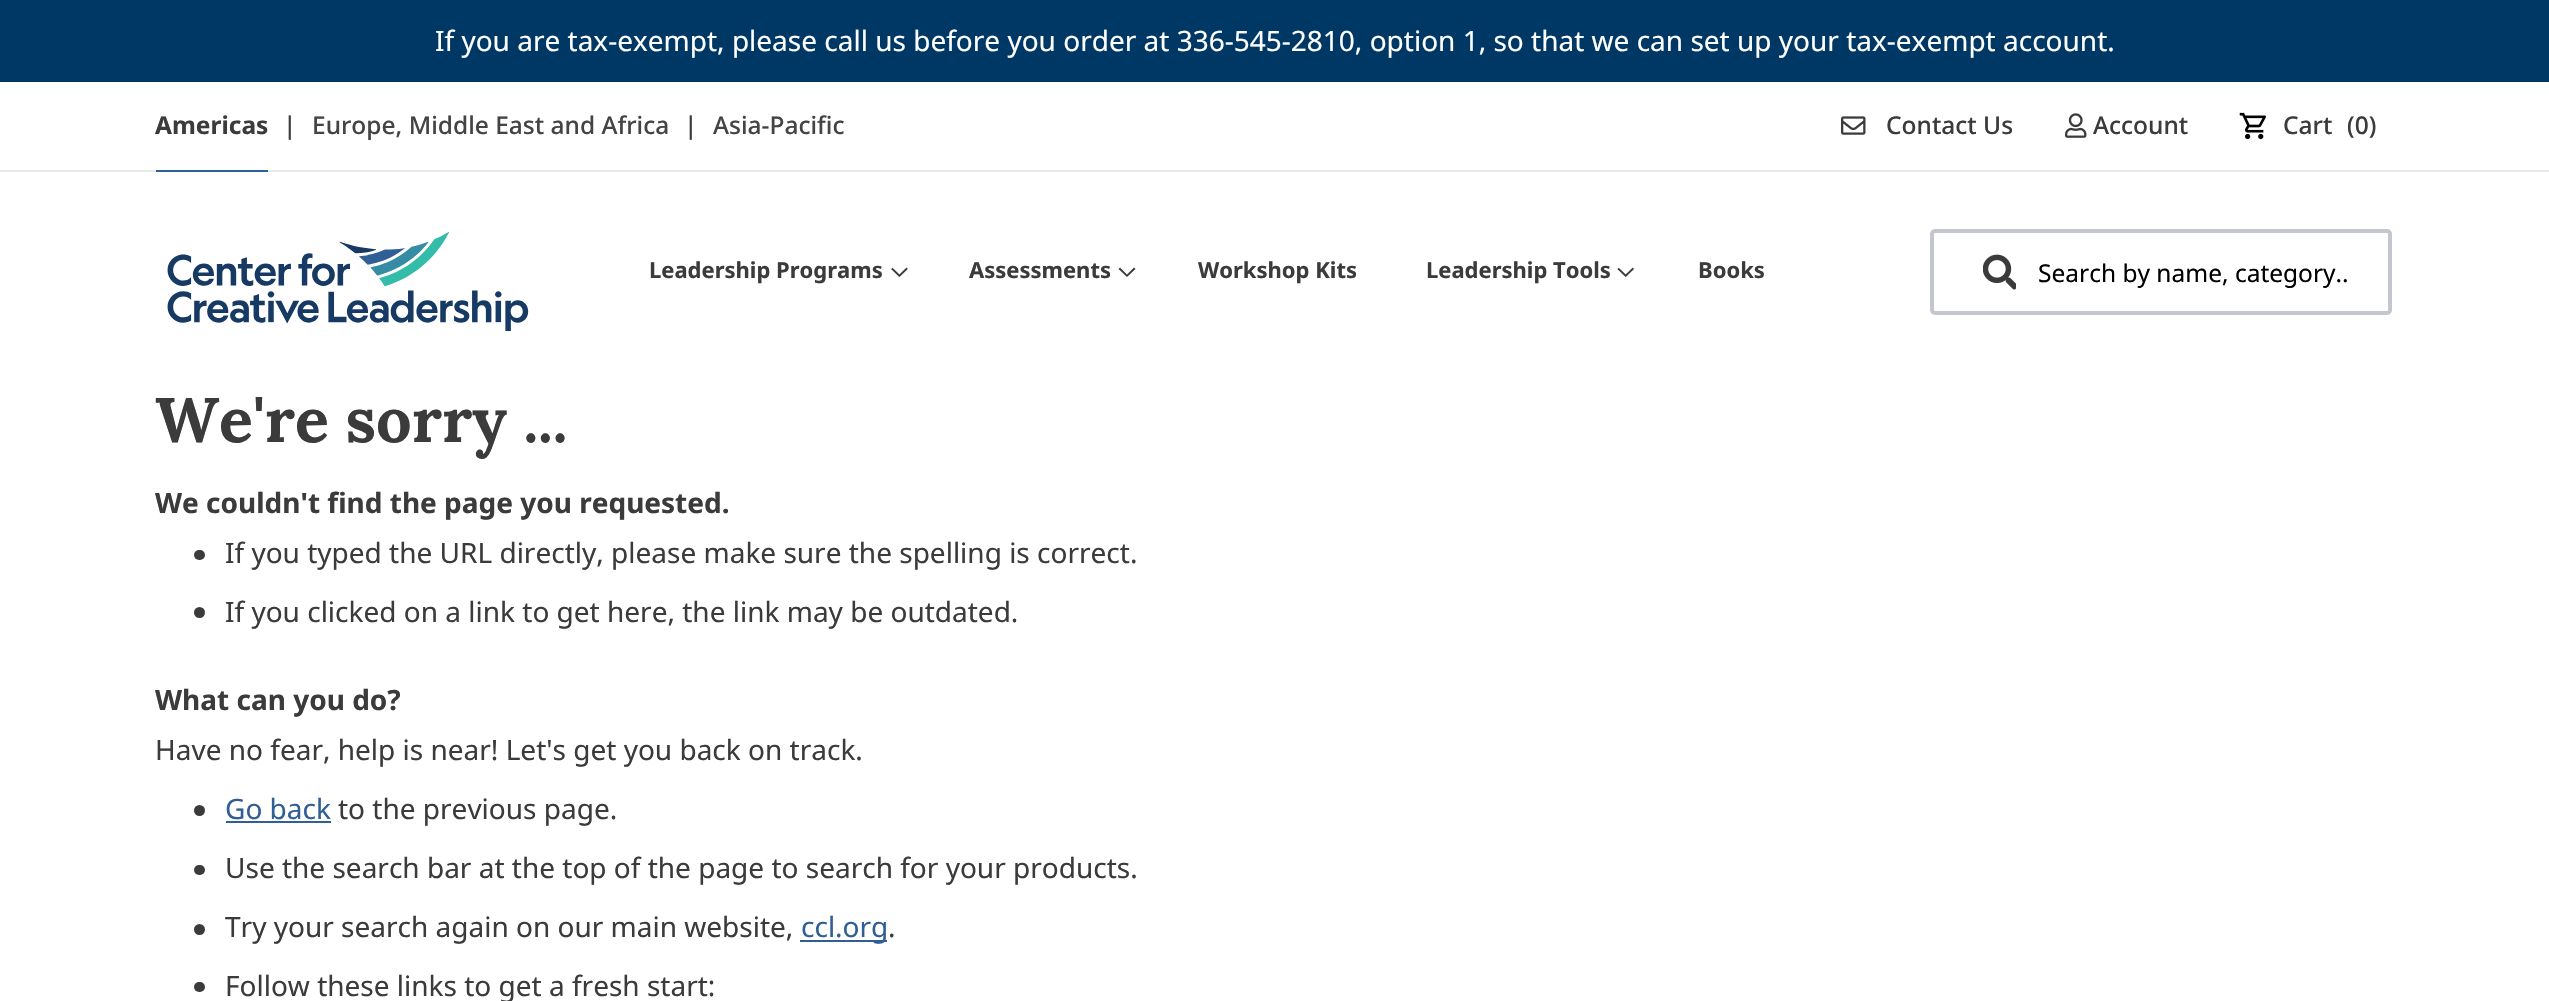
#include "include/core/SkBlurTypes.h"
#include "include/core/SkCanvas.h"
#include "include/core/SkData.h"
#include "include/core/SkFont.h"
#include "include/core/SkFontMgr.h"
#include "include/core/SkImage.h"
#include "include/core/SkMaskFilter.h"
#include "include/core/SkPaint.h"
#include "include/core/SkPathBuilder.h"
#include "include/core/SkTextBlob.h"
#include "include/effects/SkDashPathEffect.h"
#include "include/effects/SkGradientShader.h"
#include "include/utils/SkParsePath.h"

extern sk_sp<SkFontMgr> fontMgr;

static SkFont font(const char* family, int weight, float size, bool italic = false) {
    SkFontStyle style(weight, SkFontStyle::kNormal_Width,
        italic ? SkFontStyle::kItalic_Slant : SkFontStyle::kUpright_Slant);
    SkFont result(fontMgr->matchFamilyStyle(family, style), size);
    result.setSubpixel(true);
    return result;
}

static void drawLabel(SkCanvas* canvas, const char* s, float x, float y, const SkFont& font, SkColor color) {
    SkPaint ink(SkColor4f::FromColor(color));
    ink.setAntiAlias(true);
    canvas->drawString(s, x, y, font, ink);
}

static void fillRect(SkCanvas* canvas, float x, float y, float w, float h, SkColor color) {
    SkPaint ink(SkColor4f::FromColor(color));
    ink.setAntiAlias(true);
    canvas->drawRect(SkRect::MakeXYWH(x, y, w, h), ink);
}

static void fillRRect(SkCanvas* canvas, float x, float y, float w, float h, float radius, SkColor color) {
    SkPaint ink(SkColor4f::FromColor(color));
    ink.setAntiAlias(true);
    canvas->drawRoundRect(SkRect::MakeXYWH(x, y, w, h), radius, radius, ink);
}

static void drawPhoto(SkCanvas* canvas, const char* path, float x, float y, float w, float h) {
    auto image = SkImages::DeferredFromEncodedData(SkData::MakeFromFileName(path));
    canvas->drawImageRect(image, SkRect::MakeXYWH(x, y, w, h), SkSamplingOptions());
}

static SkPath parsePath(const char* data, bool evenOdd = false) {
    SkPath result = *SkParsePath::FromSVGString(data);
    if (evenOdd) result.setFillType(SkPathFillType::kEvenOdd);
    return result;
}

void draw(SkCanvas* canvas) {
    SkPaint paint;
    paint.setAntiAlias(true);
    canvas->clear(0xFFFFFFFF);
    fillRect(canvas, 0, 0, 2549, 82, 0xFF003865);
    SkFont font1 = font("Noto Sans", 400, 28);
    drawLabel(canvas, "If you are tax-exempt, please call us before you order at 336-545-2810, option 1, so that we can set up your tax-exempt account.", 435, 51, font1, 0xFFFFFFFF);
    fillRect(canvas, 0, 170, 2549, 2, 0xFFE8E8E8);
    fillRect(canvas, 156, 170, 112, 2, 0xFF2F5F95);
    SkFont font2 = font("Noto Sans", 700, 24.5f);
    drawLabel(canvas, "Americas", 155, 134, font2, 0xFF3B3B3B);
    SkFont font3 = font("Noto Sans", 500, 24.5f);
    drawLabel(canvas, "|", 283, 134, font3, 0xFF3B3B3B);
    drawLabel(canvas, "Europe, Middle East and Africa", 312, 134, font3, 0xFF444444);
    drawLabel(canvas, "|", 684, 134, font3, 0xFF3B3B3B);
    drawLabel(canvas, "Asia-Pacific", 713, 134, font3, 0xFF444444);
    drawPhoto(canvas, "assets/img1.png", 1841, 116, 25, 19);
    drawLabel(canvas, "Contact Us", 1886, 134, font3, 0xFF3B3B3B);
    drawPhoto(canvas, "assets/img2.png", 2065, 113, 22, 25);
    drawLabel(canvas, "Account", 2093, 134, font3, 0xFF3B3B3B);
    drawPhoto(canvas, "assets/img3.png", 2239, 112, 27, 28);
    drawLabel(canvas, "Cart", 2283, 134, font3, 0xFF3B3B3B);
    drawLabel(canvas, "(0)", 2347, 134, font3, 0xFF3B3B3B);
    drawPhoto(canvas, "assets/img4.png", 167, 232, 362, 99);
    SkFont font4 = font("Noto Sans", 700, 22);
    drawLabel(canvas, "Leadership Programs", 649, 278, font4, 0xFF3B3B3B);
    drawPhoto(canvas, "assets/img5.png", 891, 267, 17, 10);
    drawLabel(canvas, "Assessments", 969, 278, font4, 0xFF3B3B3B);
    paint.setColor(0xFF3B3B3B);
    canvas->drawPath(parsePath("M1127 274.5L1120 267.5L1118.5 269L1127 277L1135.5 269L1134 267.5Z"), paint);
    drawLabel(canvas, "Workshop Kits", 1198, 278, font4, 0xFF3B3B3B);
    drawLabel(canvas, "Leadership Tools", 1426, 278, font4, 0xFF3B3B3B);
    drawPhoto(canvas, "assets/img6.png", 1617, 267, 17, 10);
    drawLabel(canvas, "Books", 1698, 278, font4, 0xFF3B3B3B);
    paint.setStroke(true);
    paint.setStrokeWidth(4);
    paint.setColor(0xFFC3C6CF);
    canvas->drawRoundRect(SkRect::MakeXYWH(1932, 231, 458, 82), 3, 3, paint);
    drawPhoto(canvas, "assets/img7.png", 1983, 254, 33, 36);
    SkFont font5 = font("Noto Sans", 400, 24.5f);
    drawLabel(canvas, "Search by name, category..", 2038, 282, font5, 0xFF000000);
    SkFont font6 = font("Lora", 700, 63);
    drawLabel(canvas, "We're sorry ...", 155, 442, font6, 0xFF3B3B3B);
    SkFont font7 = font("Noto Sans", 700, 28);
    drawLabel(canvas, "We couldn't find the page you requested.", 155, 513, font7, 0xFF3B3B3B);
    fillRRect(canvas, 194, 550, 11, 10, 5, 0xFF3B3B3B);
    drawLabel(canvas, "If you typed the URL directly, please make sure the spelling is correct.", 225, 563, font1, 0xFF3B3B3B);
    paint.setStroke(false);
    paint.setColor(0xFF3B3B3B);
    canvas->drawCircle(199.5f, 612.5f, 5.5f, paint);
    drawLabel(canvas, "If you clicked on a link to get here, the link may be outdated.", 225, 622, font1, 0xFF3B3B3B);
    drawLabel(canvas, "What can you do?", 155, 710, font7, 0xFF3B3B3B);
    drawLabel(canvas, "Have no fear, help is near! Let's get you back on track.", 155, 760, font1, 0xFF3B3B3B);
    canvas->drawCircle(199.5f, 810.5f, 5.5f, paint);
    drawLabel(canvas, "Go back", 225, 819, font1, 0xFF2F5F95);
    fillRect(canvas, 226, 821, 105, 2, 0xFF2F5F95);
    drawLabel(canvas, "to the previous page.", 338, 819, font1, 0xFF3B3B3B);
    fillRRect(canvas, 194, 865, 11, 10, 5, 0xFF3B3B3B);
    drawLabel(canvas, "Use the search bar at the top of the page to search for your products.", 225, 878, font1, 0xFF3B3B3B);
    canvas->drawCircle(199.5f, 929.5f, 5.5f, paint);
    drawLabel(canvas, "Try your search again on our main website,", 225, 937, font1, 0xFF3B3B3B);
    fillRect(canvas, 800, 940, 87, 2, 0xFF2F5F95);
    drawLabel(canvas, "ccl.org", 801, 937, font1, 0xFF2F5F95);
    drawLabel(canvas, ".", 888, 937, font1, 0xFF3B3B3B);
    fillRRect(canvas, 194, 982, 11, 10, 5, 0xFF3B3B3B);
    drawLabel(canvas, "Follow these links to get a fresh start:", 225, 996, font1, 0xFF3B3B3B);
}
